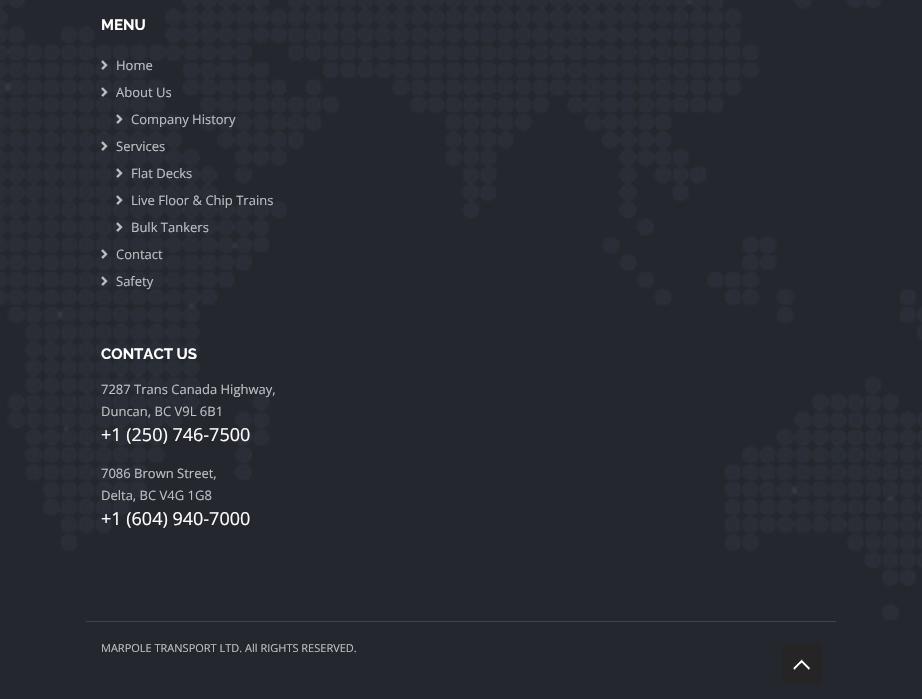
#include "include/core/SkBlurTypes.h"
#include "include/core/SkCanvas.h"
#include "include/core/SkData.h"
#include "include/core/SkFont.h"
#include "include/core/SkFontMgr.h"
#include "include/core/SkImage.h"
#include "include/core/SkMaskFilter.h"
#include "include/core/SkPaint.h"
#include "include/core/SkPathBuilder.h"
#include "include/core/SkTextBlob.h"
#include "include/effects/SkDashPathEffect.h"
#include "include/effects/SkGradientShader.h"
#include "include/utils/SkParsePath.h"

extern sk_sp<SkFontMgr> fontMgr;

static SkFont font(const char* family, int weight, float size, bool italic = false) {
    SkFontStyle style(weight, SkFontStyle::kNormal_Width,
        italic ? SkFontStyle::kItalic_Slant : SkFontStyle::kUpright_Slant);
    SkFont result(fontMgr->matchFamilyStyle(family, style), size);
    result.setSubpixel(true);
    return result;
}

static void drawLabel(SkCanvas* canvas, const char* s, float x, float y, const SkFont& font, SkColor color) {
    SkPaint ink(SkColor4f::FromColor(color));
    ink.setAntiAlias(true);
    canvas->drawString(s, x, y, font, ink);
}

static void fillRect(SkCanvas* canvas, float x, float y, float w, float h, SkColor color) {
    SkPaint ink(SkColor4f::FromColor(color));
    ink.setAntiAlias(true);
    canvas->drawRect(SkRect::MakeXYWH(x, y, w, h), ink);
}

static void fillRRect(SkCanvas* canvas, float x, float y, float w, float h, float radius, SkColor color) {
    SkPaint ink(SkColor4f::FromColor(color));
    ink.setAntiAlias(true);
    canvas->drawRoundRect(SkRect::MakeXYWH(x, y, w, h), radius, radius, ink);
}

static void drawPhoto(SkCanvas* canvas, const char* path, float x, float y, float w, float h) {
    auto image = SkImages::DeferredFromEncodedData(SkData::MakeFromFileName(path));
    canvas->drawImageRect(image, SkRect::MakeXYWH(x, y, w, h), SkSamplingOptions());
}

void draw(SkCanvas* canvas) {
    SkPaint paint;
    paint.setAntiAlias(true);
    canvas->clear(0xFF25272E);
    drawPhoto(canvas, "assets/img1.png", 0, 0, 922, 620);
    SkFont font1 = font("Raleway", 700, 15);
    drawLabel(canvas, "MENU", 101, 30, font1, 0xFFFFFFFF);
    drawPhoto(canvas, "assets/img2.png", 101, 60, 7, 10);
    SkFont font2 = font("Open Sans", 400, 13);
    drawLabel(canvas, "Home", 116, 70, font2, 0xFFBCC0C4);
    drawPhoto(canvas, "assets/img3.png", 101, 87, 7, 10);
    drawLabel(canvas, "About Us", 116, 97, font2, 0xFFBCC0C4);
    drawPhoto(canvas, "assets/img4.png", 116, 114, 7, 10);
    drawLabel(canvas, "Company History", 131, 124, font2, 0xFFBCC0C4);
    drawPhoto(canvas, "assets/img5.png", 101, 141, 7, 10);
    drawLabel(canvas, "Services", 116, 151, font2, 0xFFBCC0C4);
    drawPhoto(canvas, "assets/img6.png", 116, 168, 7, 10);
    drawLabel(canvas, "Flat Decks", 131, 178, font2, 0xFFBCC0C4);
    drawPhoto(canvas, "assets/img7.png", 116, 195, 7, 10);
    drawLabel(canvas, "Live Floor & Chip Trains", 131, 205, font2, 0xFFBCC0C4);
    drawPhoto(canvas, "assets/img8.png", 116, 222, 7, 10);
    drawLabel(canvas, "Bulk Tankers", 131, 232, font2, 0xFFBCC0C4);
    drawPhoto(canvas, "assets/img9.png", 101, 249, 7, 10);
    drawLabel(canvas, "Contact", 116, 259, font2, 0xFFBCC0C4);
    drawPhoto(canvas, "assets/img10.png", 101, 276, 7, 10);
    drawLabel(canvas, "Safety", 116, 286, font2, 0xFFBCC0C4);
    drawLabel(canvas, "CONTACT US", 101, 359, font1, 0xFFFFFFFF);
    drawLabel(canvas, "7287 Trans Canada Highway,", 101, 394, font2, 0xFFBCC0C4);
    drawLabel(canvas, "Duncan, BC V9L 6B1", 101, 416, font2, 0xFFBCC0C4);
    SkFont font3 = font("Open Sans", 400, 18);
    drawLabel(canvas, "+1 (250) 746-7500", 101, 441, font3, 0xFFFFFFFF);
    drawLabel(canvas, "7086 Brown Street,", 101, 478, font2, 0xFFBCC0C4);
    drawLabel(canvas, "Delta, BC V4G 1G8", 101, 500, font2, 0xFFBCC0C4);
    drawLabel(canvas, "+1 (604) 940-7000", 101, 525, font3, 0xFFFFFFFF);
    fillRect(canvas, 86, 621, 750, 1, 0xFF384653);
    SkFont font4 = font("Open Sans", 400, 11);
    drawLabel(canvas, "MARPOLE TRANSPORT LTD. All RIGHTS RESERVED.", 101, 652, font4, 0xFFBCC0C4);
    fillRRect(canvas, 782, 644, 40, 40, 4, 0xFF252525);
    drawPhoto(canvas, "assets/img11.png", 793, 659, 17, 11);
}
